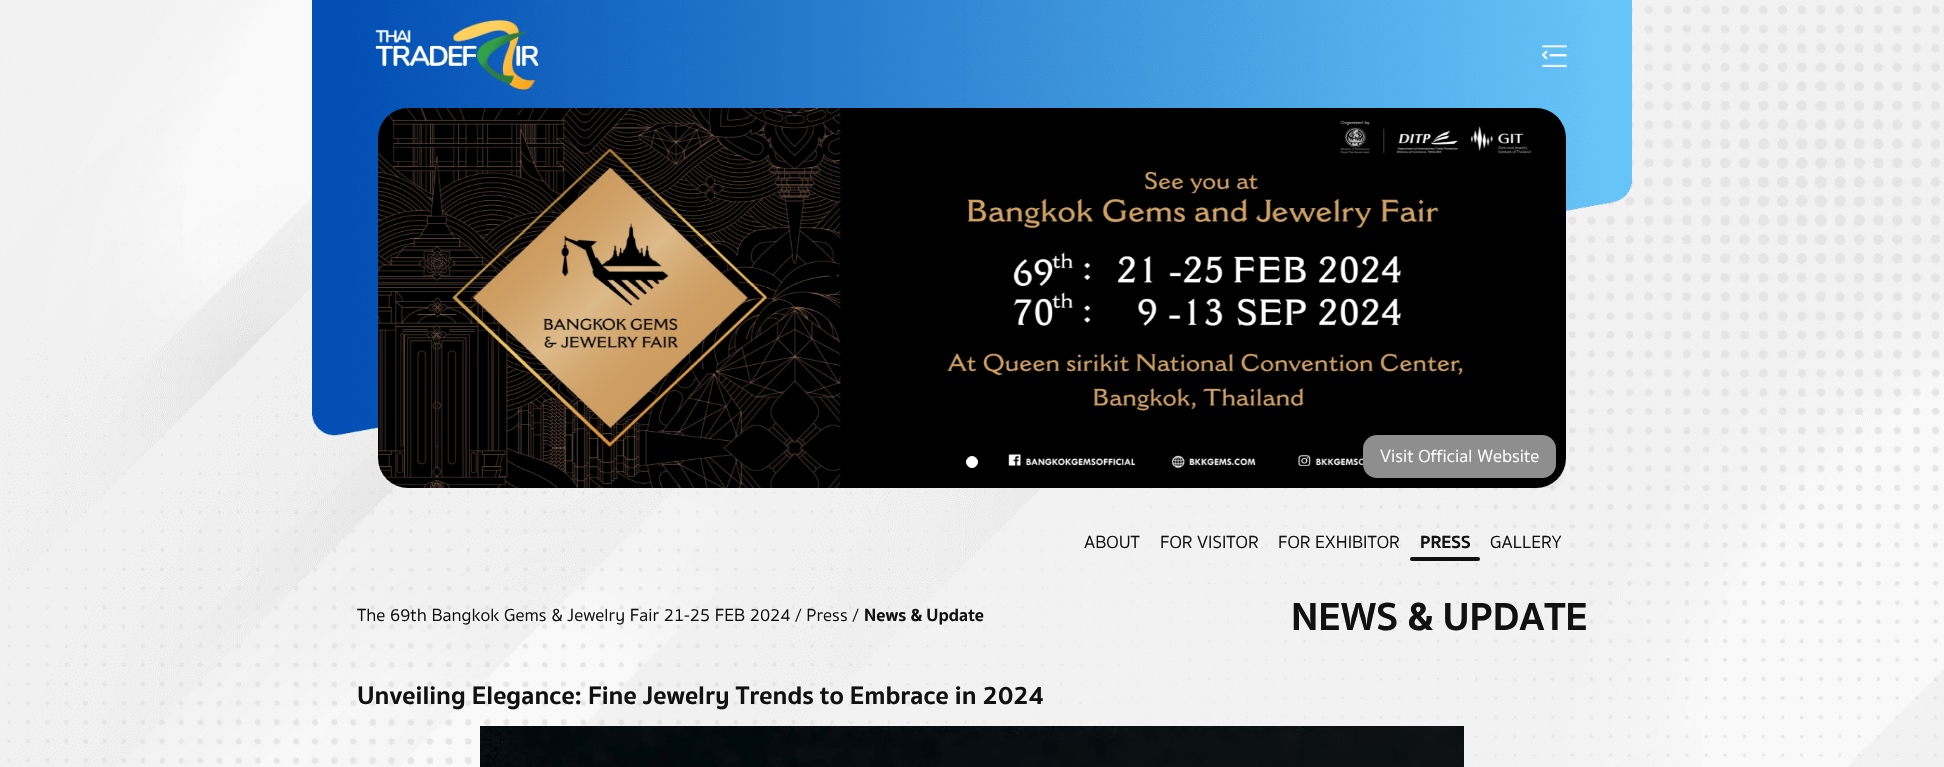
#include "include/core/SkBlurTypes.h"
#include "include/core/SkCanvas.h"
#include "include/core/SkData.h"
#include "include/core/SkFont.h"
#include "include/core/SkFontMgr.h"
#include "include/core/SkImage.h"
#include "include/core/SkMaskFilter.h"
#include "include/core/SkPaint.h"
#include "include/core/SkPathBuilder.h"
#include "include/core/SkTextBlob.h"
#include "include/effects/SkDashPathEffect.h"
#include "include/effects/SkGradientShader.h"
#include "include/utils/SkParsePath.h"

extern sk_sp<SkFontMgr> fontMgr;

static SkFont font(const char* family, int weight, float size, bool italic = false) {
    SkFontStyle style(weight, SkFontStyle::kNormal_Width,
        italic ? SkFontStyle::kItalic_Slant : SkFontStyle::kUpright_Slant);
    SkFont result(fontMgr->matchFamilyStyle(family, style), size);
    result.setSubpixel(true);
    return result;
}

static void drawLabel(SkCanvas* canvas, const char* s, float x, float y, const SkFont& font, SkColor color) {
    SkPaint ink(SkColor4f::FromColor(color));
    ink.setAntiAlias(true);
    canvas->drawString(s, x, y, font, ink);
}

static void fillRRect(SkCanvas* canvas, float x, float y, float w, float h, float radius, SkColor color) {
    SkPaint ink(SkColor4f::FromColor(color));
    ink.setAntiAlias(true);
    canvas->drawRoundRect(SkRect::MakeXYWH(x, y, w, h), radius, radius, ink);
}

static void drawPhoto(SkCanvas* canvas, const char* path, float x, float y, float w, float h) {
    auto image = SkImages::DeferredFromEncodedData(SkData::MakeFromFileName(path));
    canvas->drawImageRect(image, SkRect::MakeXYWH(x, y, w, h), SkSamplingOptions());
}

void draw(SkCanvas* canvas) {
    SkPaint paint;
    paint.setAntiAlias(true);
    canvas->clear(0xFFFFFFFF);
    drawPhoto(canvas, "assets/img1.png", 0, 0, 1944, 767);
    drawPhoto(canvas, "assets/img2.png", 312, 0, 1320, 436);
    drawPhoto(canvas, "assets/img3.png", 375, 20, 164, 70);
    drawPhoto(canvas, "assets/img4.png", 1542, 45, 25, 22);
    drawPhoto(canvas, "assets/img5.png", 378, 108, 1188, 380);
    paint.setColor(0xFFFFFFFF);
    canvas->drawCircle(972, 462, 5.5f, paint);
    paint.setStroke(true);
    paint.setStrokeWidth(1);
    canvas->drawCircle(972, 462, 5.5f, paint);
    canvas->save();
    canvas->clipRect(SkRect::MakeXYWH(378, 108, 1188, 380));
    paint.setStroke(false);
    paint.setColor(0x66000000);
    paint.setMaskFilter(SkMaskFilter::MakeBlur(kNormal_SkBlurStyle, 6));
    canvas->drawRoundRect(SkRect::MakeXYWH(1363, 439, 193, 43), 14, 14, paint);
    paint.setMaskFilter(nullptr);
    canvas->restore();
    paint.setColor(0xFF8E8E8E);
    canvas->drawRoundRect(SkRect::MakeXYWH(1364, 436, 191, 41), 13, 13, paint);
    paint.setStroke(true);
    paint.setStrokeWidth(2);
    canvas->drawRoundRect(SkRect::MakeXYWH(1364, 436, 191, 41), 13, 13, paint);
    SkFont font1 = font("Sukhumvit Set", 400, 18);
    drawLabel(canvas, "Visit Official Website", 1380, 462, font1, 0xFFFFFFFF);
    drawLabel(canvas, "ABOUT", 1084, 548, font1, 0xFF111111);
    drawLabel(canvas, "FOR VISITOR", 1160, 548, font1, 0xFF111111);
    drawLabel(canvas, "FOR EXHIBITOR", 1278, 548, font1, 0xFF111111);
    SkFont font2 = font("Sukhumvit Set", 700, 18);
    drawLabel(canvas, "PRESS", 1420, 548, font2, 0xFF111111);
    fillRRect(canvas, 1410, 557, 70, 4, 2, 0xFF111111);
    drawLabel(canvas, "GALLERY", 1490, 548, font1, 0xFF111111);
    drawLabel(canvas, "The 69th Bangkok Gems & Jewelry Fair 21-25 FEB 2024 / Press /", 357, 621, font1, 0xFF111111);
    drawLabel(canvas, "News & Update", 864, 621, font2, 0xFF111111);
    SkFont font3 = font("Sukhumvit Set", 700, 40);
    drawLabel(canvas, "NEWS & UPDATE", 1291, 630, font3, 0xFF111111);
    SkFont font4 = font("Sukhumvit Set", 700, 26);
    drawLabel(canvas, "Unveiling Elegance: Fine Jewelry Trends to Embrace in 2024", 357, 704, font4, 0xFF111111);
    drawPhoto(canvas, "assets/img6.png", 480, 726, 984, 41);
}
